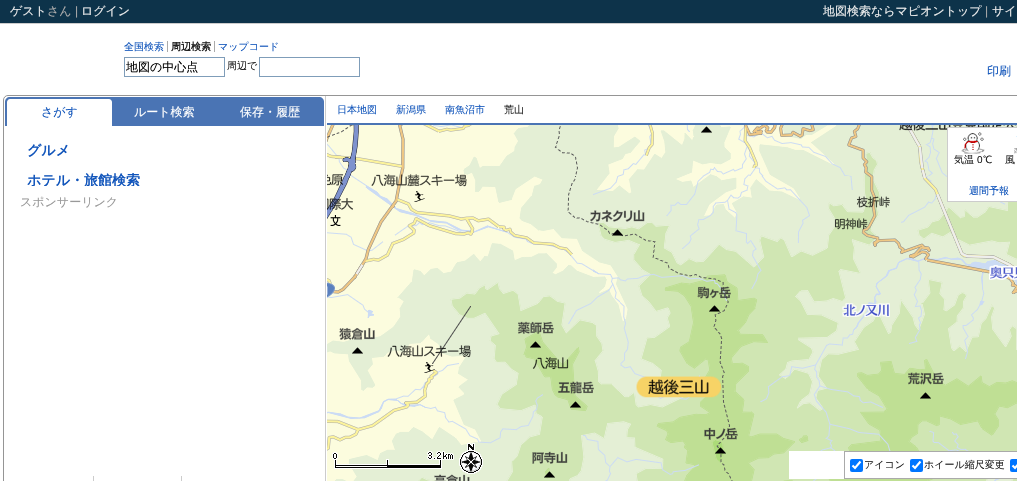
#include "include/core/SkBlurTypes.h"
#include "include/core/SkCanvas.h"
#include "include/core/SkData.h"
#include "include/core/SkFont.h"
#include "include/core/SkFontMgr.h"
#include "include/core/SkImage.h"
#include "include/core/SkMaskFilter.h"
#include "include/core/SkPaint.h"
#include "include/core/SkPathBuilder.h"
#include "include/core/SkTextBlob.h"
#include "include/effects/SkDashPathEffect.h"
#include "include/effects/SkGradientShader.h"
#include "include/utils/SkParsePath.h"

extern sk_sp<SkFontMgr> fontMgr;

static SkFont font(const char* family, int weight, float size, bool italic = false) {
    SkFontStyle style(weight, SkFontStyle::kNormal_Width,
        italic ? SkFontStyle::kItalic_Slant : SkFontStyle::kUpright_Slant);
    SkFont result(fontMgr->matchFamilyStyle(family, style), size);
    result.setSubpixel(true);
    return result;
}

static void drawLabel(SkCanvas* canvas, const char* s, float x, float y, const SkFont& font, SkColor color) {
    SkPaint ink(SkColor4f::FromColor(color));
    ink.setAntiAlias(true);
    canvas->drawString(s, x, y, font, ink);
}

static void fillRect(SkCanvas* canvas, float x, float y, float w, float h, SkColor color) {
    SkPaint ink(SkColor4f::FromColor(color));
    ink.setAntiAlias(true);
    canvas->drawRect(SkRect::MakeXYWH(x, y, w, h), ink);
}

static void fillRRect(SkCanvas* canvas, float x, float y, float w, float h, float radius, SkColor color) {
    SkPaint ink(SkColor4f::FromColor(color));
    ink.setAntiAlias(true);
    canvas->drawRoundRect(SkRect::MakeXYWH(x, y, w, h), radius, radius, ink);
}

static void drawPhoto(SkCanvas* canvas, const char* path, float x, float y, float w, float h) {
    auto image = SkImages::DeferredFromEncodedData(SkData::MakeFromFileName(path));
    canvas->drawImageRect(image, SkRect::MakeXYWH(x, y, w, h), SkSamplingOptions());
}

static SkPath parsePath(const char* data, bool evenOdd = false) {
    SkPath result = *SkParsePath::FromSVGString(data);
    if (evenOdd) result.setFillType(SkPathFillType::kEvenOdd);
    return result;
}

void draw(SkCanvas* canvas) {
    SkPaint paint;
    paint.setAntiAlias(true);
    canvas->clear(0xFFFFFFFF);
    fillRect(canvas, 0, 0, 1017, 23, 0xFF0D334A);
    fillRect(canvas, 0, 23, 1017, 1, 0xFFCCCCCC);
    SkFont font1 = font("WenQuanYi Zen Hei", 500, 12);
    drawLabel(canvas, "ゲスト", 10, 15, font1, 0xFFEEEEEE);
    drawLabel(canvas, "さん", 47, 15, font1, 0xFFAAAAAA);
    SkFont font2 = font("Liberation Sans", 400, 12);
    drawLabel(canvas, "|", 75, 15, font2, 0xFFAAAAAA);
    drawLabel(canvas, "ログイン", 81, 15, font1, 0xFFEEEEEE);
    drawLabel(canvas, "地図検索ならマピオントップ", 823, 15, font1, 0xFFEEEEEE);
    drawLabel(canvas, "|", 985, 15, font2, 0xFFAAAAAA);
    drawLabel(canvas, "サイ", 992, 15, font1, 0xFFEEEEEE);
    fillRect(canvas, 167, 41, 1, 11, 0xFFAAAAAA);
    SkFont font3 = font("WenQuanYi Zen Hei", 500, 10);
    drawLabel(canvas, "全国検索", 124, 50, font3, 0xFF1155BB);
    fillRect(canvas, 214, 41, 1, 11, 0xFFAAAAAA);
    SkFont font4 = font("WenQuanYi Zen Hei", 700, 10);
    drawLabel(canvas, "周辺検索", 171, 50, font4, 0xFF222222);
    drawLabel(canvas, "マップコード", 218, 50, font3, 0xFF1155BB);
    paint.setStroke(true);
    paint.setStrokeWidth(1);
    paint.setColor(0xFF7F9DB9);
    canvas->drawRect(SkRect::MakeXYWH(124.5f, 57.5f, 100, 19), paint);
    drawLabel(canvas, "地図の中心点", 126, 71, font1, 0xFF000000);
    drawLabel(canvas, "周辺で", 227, 69, font3, 0xFF222222);
    canvas->drawRect(SkRect::MakeXYWH(259.5f, 57.5f, 100, 19), paint);
    drawLabel(canvas, "印刷", 987, 75, font1, 0xFF1155BB);
    paint.setColor(0xFF959595);
    canvas->drawPath(parsePath("M8 95.5H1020C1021.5 95.5 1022.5 96.5 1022.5 98V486.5H8C5.5 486.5 3.5 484.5 3.5 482V100C3.5 97.5 5.5 95.5 8 95.5Z"), paint);
    fillRect(canvas, 325, 96, 1, 385, 0xFFCCCCCC);
    paint.setStroke(false);
    paint.setColor(0xFF4A74B4);
    canvas->drawPath(parsePath("M10 97H319C322 97 324 99 324 102V126H5V102C5 99 7 97 10 97Z"), paint);
    paint.setColor(0xFFFFFFFF);
    canvas->drawPath(parsePath("M10 99H109C110.5 99 112 100.5 112 102V126H7V102C7 100.5 8.5 99 10 99Z"), paint);
    drawLabel(canvas, "さがす", 41, 116, font1, 0xFF1155BB);
    drawLabel(canvas, "ルート検索", 134, 116, font1, 0xFFFFFFFF);
    drawLabel(canvas, "保存・履歴", 240, 116, font1, 0xFFFFFFFF);
    SkFont font5 = font("WenQuanYi Zen Hei", 700, 14);
    drawLabel(canvas, "グルメ", 27, 155, font5, 0xFF1155BB);
    canvas->save();
    canvas->clipRect(SkRect::MakeXYWH(5, 131, 318, 55));
    drawLabel(canvas, "ホテル・旅館検索", 27, 185, font5, 0xFF1155BB);
    canvas->restore();
    drawLabel(canvas, "スポンサーリンク", 20, 206, font1, 0xFF999999);
    fillRect(canvas, 93, 476, 1, 5, 0xFFCCCCCC);
    fillRect(canvas, 181, 476, 1, 5, 0xFFCCCCCC);
    fillRect(canvas, 327, 123, 690, 2, 0xFF4A74B4);
    drawLabel(canvas, "日本地図", 337, 113, font3, 0xFF1155BB);
    drawLabel(canvas, "新潟県", 396, 113, font3, 0xFF1155BB);
    drawLabel(canvas, "南魚沼市", 445, 113, font3, 0xFF1155BB);
    drawLabel(canvas, "荒山", 504, 113, font3, 0xFF222222);
    drawPhoto(canvas, "assets/img1.png", 327, 125, 37, 51);
    drawPhoto(canvas, "assets/img2.png", 364, 125, 256, 51);
    drawPhoto(canvas, "assets/img3.png", 620, 125, 256, 51);
    drawPhoto(canvas, "assets/img4.png", 876, 125, 141, 51);
    drawPhoto(canvas, "assets/img5.png", 327, 176, 37, 256);
    drawPhoto(canvas, "assets/img6.png", 364, 176, 256, 256);
    drawPhoto(canvas, "assets/img7.png", 620, 176, 256, 256);
    drawPhoto(canvas, "assets/img8.png", 876, 176, 141, 256);
    drawPhoto(canvas, "assets/img9.png", 327, 432, 37, 49);
    drawPhoto(canvas, "assets/img10.png", 364, 432, 256, 49);
    drawPhoto(canvas, "assets/img11.png", 620, 432, 256, 49);
    drawPhoto(canvas, "assets/img12.png", 876, 432, 141, 49);
    canvas->drawRect(SkRect::MakeXYWH(947.5f, 127.5f, 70, 74), paint);
    paint.setStroke(true);
    paint.setColor(0xFFCCCCCC);
    canvas->drawRect(SkRect::MakeXYWH(947.5f, 127.5f, 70, 74), paint);
    drawPhoto(canvas, "assets/img13.png", 961, 132, 24, 22);
    drawLabel(canvas, "気温", 954, 163, font3, 0xFF222222);
    SkFont font6 = font("Liberation Sans", 400, 10);
    drawLabel(canvas, "0", 977, 163, font6, 0xFF222222);
    drawLabel(canvas, "℃", 983, 163, font3, 0xFF222222);
    drawPhoto(canvas, "assets/img14.png", 1014, 136, 3, 18);
    drawLabel(canvas, "風", 1005, 163, font3, 0xFF222222);
    drawLabel(canvas, "週間予報", 969, 194, font3, 0xFF1155BB);
    drawPhoto(canvas, "assets/img15.png", 332, 443, 151, 31);
    fillRect(canvas, 789, 451, 55, 28, 0xFFFFFFFF);
    paint.setStroke(false);
    paint.setColor(0xFFFFFFFF);
    canvas->drawRect(SkRect::MakeXYWH(844.5f, 451.5f, 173, 27), paint);
    paint.setStroke(true);
    paint.setColor(0xFFAAAAAA);
    canvas->drawRect(SkRect::MakeXYWH(844.5f, 451.5f, 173, 27), paint);
    fillRRect(canvas, 850, 459, 13, 13, 2, 0xFF0075FF);
    paint.setStrokeWidth(2.1f);
    paint.setColor(0xFFFFFFFF);
    canvas->drawPath(parsePath("M852.5 465.5L855 468L860.5 461.5"), paint);
    drawLabel(canvas, "アイコン", 864, 468, font3, 0xFF222222);
    fillRRect(canvas, 910, 459, 13, 13, 2, 0xFF0075FF);
    canvas->drawPath(parsePath("M912.5 465.5L915 468L920.5 461.5"), paint);
    drawLabel(canvas, "ホイール縮尺変更", 924, 468, font3, 0xFF222222);
    fillRRect(canvas, 1010, 459, 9, 13, 2, 0xFF0075FF);
    canvas->drawPath(parsePath("M1012.5 465.5L1015 468L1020.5 461.5"), paint);
}
